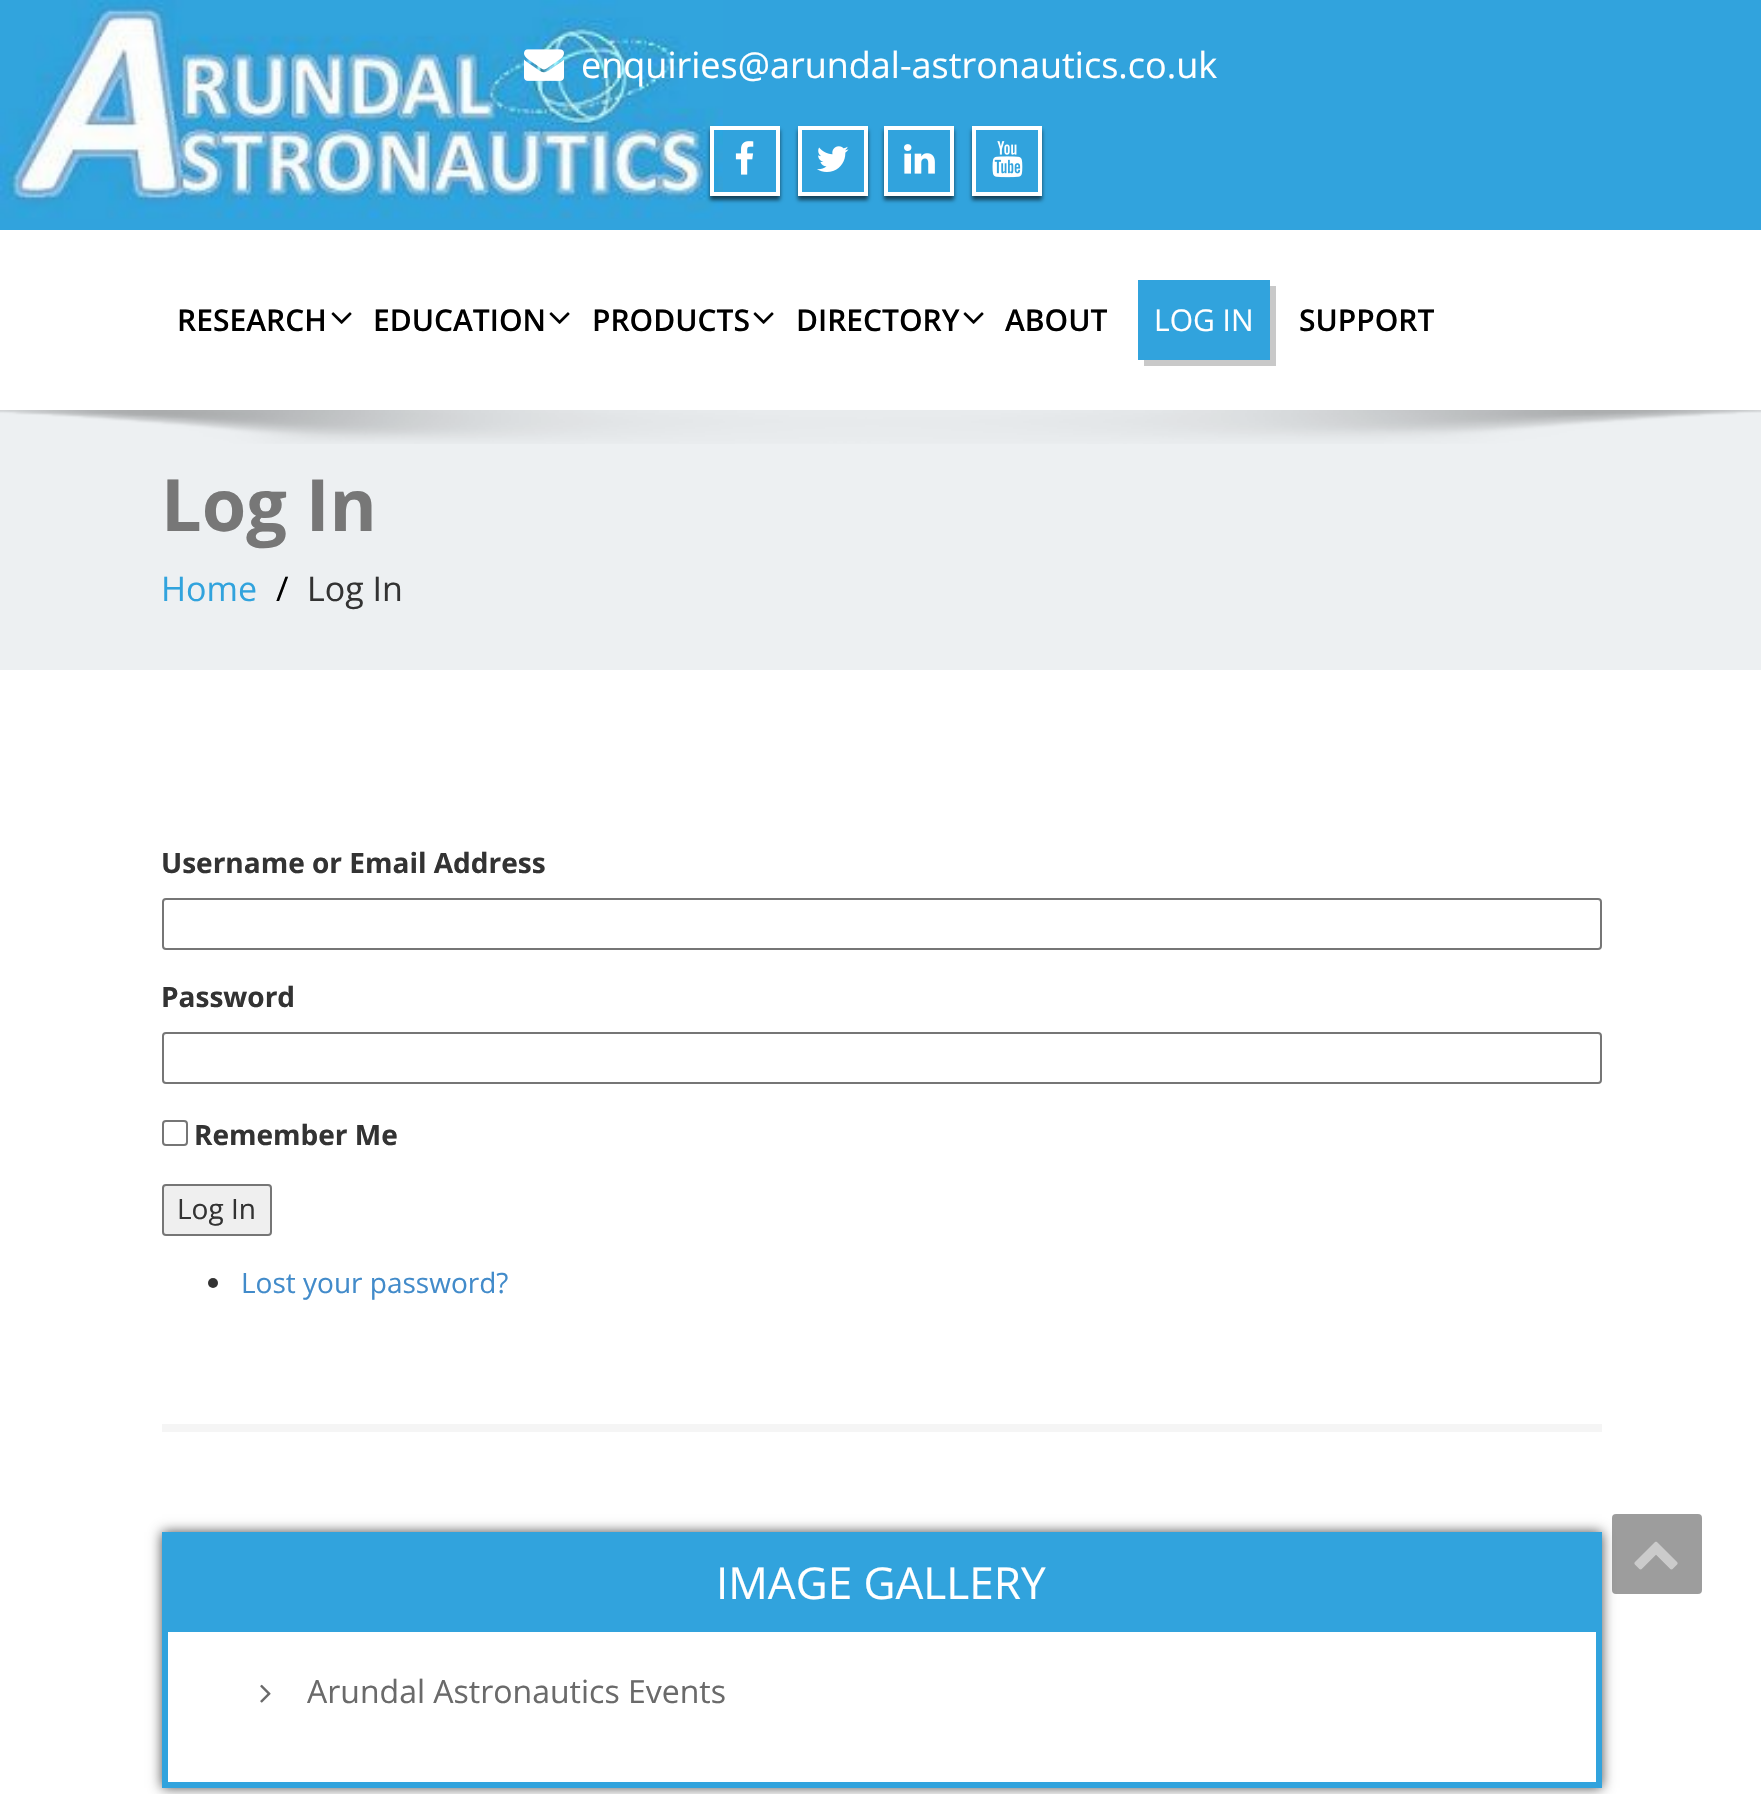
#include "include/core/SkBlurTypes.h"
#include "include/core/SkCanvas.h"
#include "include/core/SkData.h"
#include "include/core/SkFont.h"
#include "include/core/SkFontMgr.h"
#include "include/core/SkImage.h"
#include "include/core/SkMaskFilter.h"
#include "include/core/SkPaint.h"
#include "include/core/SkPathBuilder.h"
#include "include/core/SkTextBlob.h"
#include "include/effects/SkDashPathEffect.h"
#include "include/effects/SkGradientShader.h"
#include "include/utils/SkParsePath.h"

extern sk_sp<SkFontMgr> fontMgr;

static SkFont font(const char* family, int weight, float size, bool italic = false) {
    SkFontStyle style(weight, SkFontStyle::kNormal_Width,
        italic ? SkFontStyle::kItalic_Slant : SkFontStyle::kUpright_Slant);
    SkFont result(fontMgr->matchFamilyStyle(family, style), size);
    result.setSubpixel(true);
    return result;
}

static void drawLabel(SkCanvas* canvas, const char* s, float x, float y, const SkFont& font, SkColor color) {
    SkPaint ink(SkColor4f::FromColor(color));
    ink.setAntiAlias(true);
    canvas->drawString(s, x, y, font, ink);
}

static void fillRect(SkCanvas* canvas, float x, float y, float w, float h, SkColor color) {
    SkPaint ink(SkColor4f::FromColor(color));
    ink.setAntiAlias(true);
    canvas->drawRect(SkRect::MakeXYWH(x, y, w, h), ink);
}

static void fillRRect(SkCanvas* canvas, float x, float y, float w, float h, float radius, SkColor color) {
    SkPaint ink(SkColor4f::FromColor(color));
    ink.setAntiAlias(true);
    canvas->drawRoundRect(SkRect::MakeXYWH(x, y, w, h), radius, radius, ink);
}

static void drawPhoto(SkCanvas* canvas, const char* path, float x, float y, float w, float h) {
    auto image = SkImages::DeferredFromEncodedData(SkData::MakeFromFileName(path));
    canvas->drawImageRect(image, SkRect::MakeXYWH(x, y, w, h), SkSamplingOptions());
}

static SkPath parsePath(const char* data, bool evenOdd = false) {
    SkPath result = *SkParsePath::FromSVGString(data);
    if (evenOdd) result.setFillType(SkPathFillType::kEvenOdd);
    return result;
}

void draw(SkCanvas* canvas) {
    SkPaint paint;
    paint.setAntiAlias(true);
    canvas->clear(0xFFFFFFFF);
    fillRect(canvas, 0, 0, 1761, 230, 0xFF31A3DD);
    drawPhoto(canvas, "assets/img1.png", 0, 0, 723, 219);
    drawPhoto(canvas, "assets/img2.png", 524, 49, 40, 32);
    SkFont font1 = font("Open Sans", 400, 36);
    drawLabel(canvas, "enquiries@arundal-astronautics.co.uk", 581, 78, font1, 0xFFFFFFFF);
    canvas->save();
    canvas->clipPath(parsePath("M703 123H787V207H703ZM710 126H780V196H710Z", true), true);
    paint.setColor(0x99000000);
    paint.setMaskFilter(SkMaskFilter::MakeBlur(kNormal_SkBlurStyle, 2));
    canvas->drawRect(SkRect::MakeXYWH(710, 130, 70, 70), paint);
    paint.setMaskFilter(nullptr);
    canvas->restore();
    paint.setStroke(true);
    paint.setStrokeWidth(4);
    paint.setColor(0xFFFFFFFF);
    canvas->drawRect(SkRect::MakeXYWH(712, 128, 66, 66), paint);
    drawPhoto(canvas, "assets/img3.png", 735, 141, 19, 34);
    canvas->save();
    canvas->clipPath(parsePath("M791 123H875V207H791ZM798 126H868V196H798Z", true), true);
    paint.setStroke(false);
    paint.setColor(0x99000000);
    paint.setMaskFilter(SkMaskFilter::MakeBlur(kNormal_SkBlurStyle, 2));
    canvas->drawRect(SkRect::MakeXYWH(798, 130, 70, 70), paint);
    paint.setMaskFilter(nullptr);
    canvas->restore();
    paint.setStroke(true);
    paint.setColor(0xFFFFFFFF);
    canvas->drawRect(SkRect::MakeXYWH(800, 128, 66, 66), paint);
    drawPhoto(canvas, "assets/img4.png", 817, 146, 32, 26);
    canvas->save();
    canvas->clipPath(parsePath("M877 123H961V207H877ZM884 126H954V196H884Z", true), true);
    paint.setStroke(false);
    paint.setColor(0x99000000);
    paint.setMaskFilter(SkMaskFilter::MakeBlur(kNormal_SkBlurStyle, 2));
    canvas->drawRect(SkRect::MakeXYWH(884, 130, 70, 70), paint);
    paint.setMaskFilter(nullptr);
    canvas->restore();
    paint.setStroke(true);
    paint.setColor(0xFFFFFFFF);
    canvas->drawRect(SkRect::MakeXYWH(886, 128, 66, 66), paint);
    drawPhoto(canvas, "assets/img5.png", 904, 144, 31, 30);
    canvas->save();
    canvas->clipPath(parsePath("M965 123H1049V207H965ZM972 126H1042V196H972Z", true), true);
    paint.setStroke(false);
    paint.setColor(0x99000000);
    paint.setMaskFilter(SkMaskFilter::MakeBlur(kNormal_SkBlurStyle, 2));
    canvas->drawRect(SkRect::MakeXYWH(972, 130, 70, 70), paint);
    paint.setMaskFilter(nullptr);
    canvas->restore();
    paint.setStroke(true);
    paint.setColor(0xFFFFFFFF);
    canvas->drawRect(SkRect::MakeXYWH(974, 128, 66, 66), paint);
    drawPhoto(canvas, "assets/img6.png", 992, 141, 31, 37);
    SkFont font2 = font("Open Sans", 600, 30);
    drawLabel(canvas, "RESEARCH", 177, 331, font2, 0xFF000000);
    drawPhoto(canvas, "assets/img7.png", 331, 312, 21, 12);
    drawLabel(canvas, "EDUCATION", 373, 331, font2, 0xFF000000);
    drawPhoto(canvas, "assets/img7.png", 549, 312, 21, 12);
    drawLabel(canvas, "PRODUCTS", 592, 331, font2, 0xFF000000);
    drawPhoto(canvas, "assets/img7.png", 753, 312, 21, 12);
    drawLabel(canvas, "DIRECTORY", 796, 331, font2, 0xFF000000);
    drawPhoto(canvas, "assets/img7.png", 963, 312, 21, 12);
    drawLabel(canvas, "ABOUT", 1005, 331, font2, 0xFF000000);
    paint.setStroke(false);
    paint.setColor(0xFFC9C9C9);
    canvas->drawPath(parsePath("M1144 360V366H1276V286H1270V360Z"), paint);
    fillRect(canvas, 1138, 280, 132, 80, 0xFF31A3DD);
    SkFont font3 = font("Open Sans", 400, 30);
    drawLabel(canvas, "LOG IN", 1154, 331, font3, 0xFFFFFFFF);
    drawLabel(canvas, "SUPPORT", 1299, 331, font2, 0xFF000000);
    fillRect(canvas, 0, 410, 1761, 260, 0xFFEDF0F2);
    drawPhoto(canvas, "assets/img8.png", 0, 410, 1761, 34);
    SkFont font4 = font("Open Sans", 700, 72);
    drawLabel(canvas, "Log In", 161, 531, font4, 0xFF777777);
    SkFont font5 = font("Open Sans", 400, 34);
    drawLabel(canvas, "Home", 161, 601, font5, 0xFF31A3DD);
    drawLabel(canvas, "/", 276, 601, font5, 0xFF000000);
    drawLabel(canvas, "Log In", 307, 601, font5, 0xFF333333);
    SkFont font6 = font("Open Sans", 700, 28);
    drawLabel(canvas, "Username or Email Address", 161, 873, font6, 0xFF333333);
    paint.setStroke(true);
    paint.setStrokeWidth(2);
    paint.setColor(0xFF767676);
    canvas->drawRoundRect(SkRect::MakeXYWH(163, 899, 1438, 50), 3, 3, paint);
    drawLabel(canvas, "Password", 161, 1007, font6, 0xFF333333);
    canvas->drawRoundRect(SkRect::MakeXYWH(163, 1033, 1438, 50), 3, 3, paint);
    canvas->drawRoundRect(SkRect::MakeXYWH(163, 1121, 24, 24), 3, 3, paint);
    drawLabel(canvas, "Remember Me", 194, 1145, font6, 0xFF333333);
    paint.setStroke(false);
    paint.setColor(0xFFEFEFEF);
    canvas->drawRoundRect(SkRect::MakeXYWH(163, 1185, 108, 50), 3, 3, paint);
    paint.setStroke(true);
    paint.setColor(0xFF767676);
    canvas->drawRoundRect(SkRect::MakeXYWH(163, 1185, 108, 50), 3, 3, paint);
    SkFont font7 = font("Open Sans", 400, 28);
    drawLabel(canvas, "Log In", 177, 1219, font7, 0xFF333333);
    paint.setStroke(false);
    paint.setColor(0xFF333333);
    canvas->drawCircle(213, 1283, 5, paint);
    drawLabel(canvas, "Lost your password?", 241, 1293, font7, 0xFF428BCA);
    fillRect(canvas, 162, 1424, 1440, 8, 0xFFF5F5F5);
    canvas->save();
    canvas->clipPath(parsePath("M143 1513H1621V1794H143ZM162 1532H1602V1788H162Z", true), true);
    paint.setColor(0xB3000000);
    paint.setMaskFilter(SkMaskFilter::MakeBlur(kNormal_SkBlurStyle, 6));
    canvas->drawRect(SkRect::MakeXYWH(162, 1532, 1440, 256), paint);
    paint.setMaskFilter(nullptr);
    canvas->restore();
    fillRect(canvas, 1596, 1532, 6, 256, 0xFF31A3DD);
    fillRect(canvas, 162, 1782, 1440, 6, 0xFF31A3DD);
    fillRect(canvas, 162, 1532, 6, 256, 0xFF31A3DD);
    fillRect(canvas, 168, 1532, 1428, 100, 0xFF31A3DD);
    SkFont font8 = font("Open Sans", 400, 44);
    drawLabel(canvas, "IMAGE GALLERY", 716, 1599, font8, 0xFFFFFFFF);
    drawPhoto(canvas, "assets/img9.png", 260, 1684, 11, 19);
    SkFont font9 = font("Open Sans", 400, 32);
    drawLabel(canvas, "Arundal Astronautics Events", 307, 1703, font9, 0xFF6A6A6A);
    fillRRect(canvas, 1612, 1514, 90, 80, 4, 0x803B3B3B);
    drawPhoto(canvas, "assets/img10.png", 1634, 1541, 44, 29);
}
